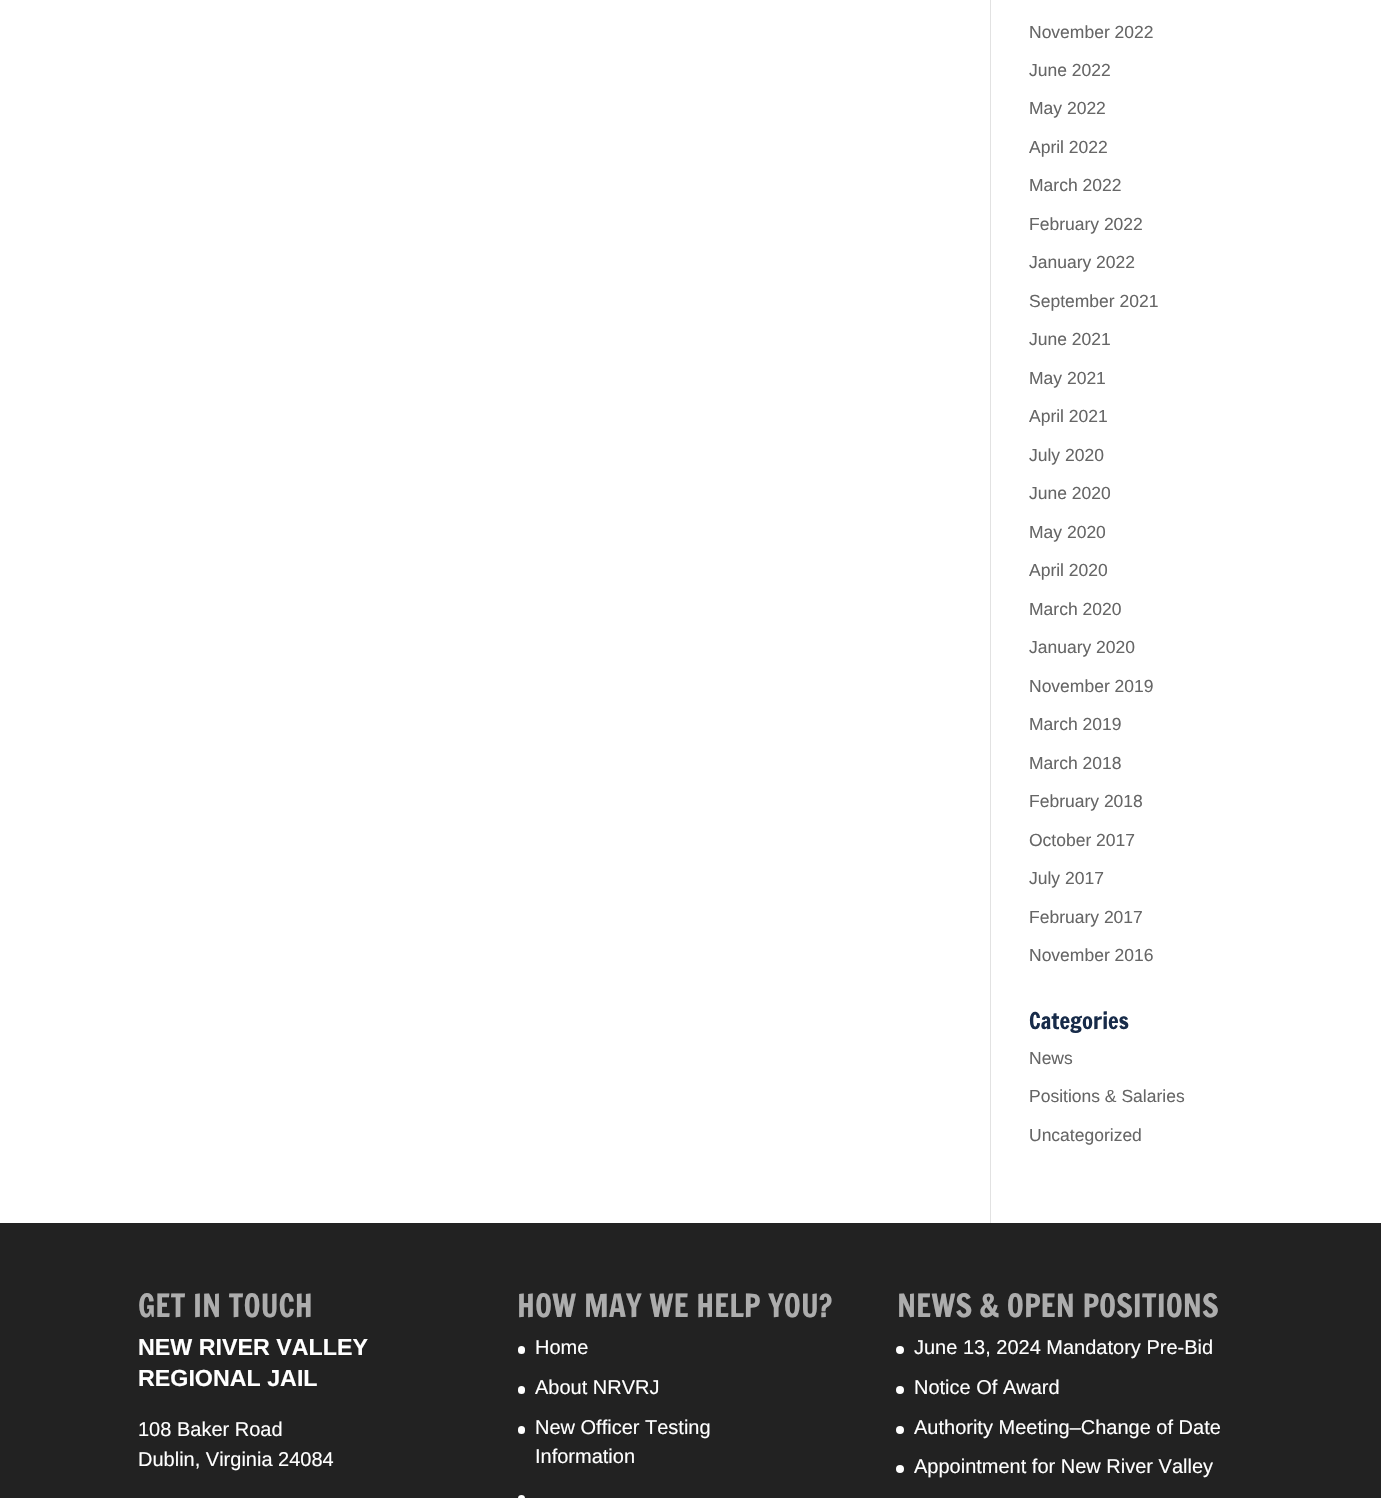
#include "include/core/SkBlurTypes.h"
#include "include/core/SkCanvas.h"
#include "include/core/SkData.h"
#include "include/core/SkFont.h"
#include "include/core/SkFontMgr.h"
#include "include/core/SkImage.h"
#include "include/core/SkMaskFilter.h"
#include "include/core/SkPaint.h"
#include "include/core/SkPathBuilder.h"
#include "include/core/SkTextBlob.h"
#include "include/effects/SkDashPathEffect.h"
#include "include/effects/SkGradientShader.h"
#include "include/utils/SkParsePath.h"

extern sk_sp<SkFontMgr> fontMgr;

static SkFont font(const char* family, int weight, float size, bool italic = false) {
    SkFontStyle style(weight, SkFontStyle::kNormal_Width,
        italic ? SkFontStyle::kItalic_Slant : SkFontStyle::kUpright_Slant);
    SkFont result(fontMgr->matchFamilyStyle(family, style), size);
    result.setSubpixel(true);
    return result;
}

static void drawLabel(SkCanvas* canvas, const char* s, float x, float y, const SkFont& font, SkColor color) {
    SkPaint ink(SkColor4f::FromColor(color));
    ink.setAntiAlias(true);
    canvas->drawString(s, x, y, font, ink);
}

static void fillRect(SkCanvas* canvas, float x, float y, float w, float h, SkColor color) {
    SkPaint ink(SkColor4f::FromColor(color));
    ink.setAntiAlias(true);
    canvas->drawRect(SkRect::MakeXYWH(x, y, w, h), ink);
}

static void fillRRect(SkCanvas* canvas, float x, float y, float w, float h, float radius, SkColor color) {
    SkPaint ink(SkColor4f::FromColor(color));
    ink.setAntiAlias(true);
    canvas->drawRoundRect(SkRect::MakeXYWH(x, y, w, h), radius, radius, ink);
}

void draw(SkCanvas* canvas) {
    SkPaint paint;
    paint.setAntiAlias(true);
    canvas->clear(0xFFFFFFFF);
    fillRect(canvas, 990, 0, 1, 1223, 0xFFE2E2E2);
    SkFont font1 = font("Liberation Sans", 400, 17.5f);
    drawLabel(canvas, "November 2022", 1029, 38, font1, 0xFF666666);
    drawLabel(canvas, "June 2022", 1029, 76, font1, 0xFF666666);
    drawLabel(canvas, "May 2022", 1029, 114, font1, 0xFF666666);
    drawLabel(canvas, "April 2022", 1029, 153, font1, 0xFF666666);
    drawLabel(canvas, "March 2022", 1029, 191, font1, 0xFF666666);
    drawLabel(canvas, "February 2022", 1029, 230, font1, 0xFF666666);
    drawLabel(canvas, "January 2022", 1029, 268, font1, 0xFF666666);
    drawLabel(canvas, "September 2021", 1029, 307, font1, 0xFF666666);
    drawLabel(canvas, "June 2021", 1029, 345, font1, 0xFF666666);
    drawLabel(canvas, "May 2021", 1029, 384, font1, 0xFF666666);
    drawLabel(canvas, "April 2021", 1029, 422, font1, 0xFF666666);
    drawLabel(canvas, "July 2020", 1029, 461, font1, 0xFF666666);
    drawLabel(canvas, "June 2020", 1029, 499, font1, 0xFF666666);
    drawLabel(canvas, "May 2020", 1029, 538, font1, 0xFF666666);
    drawLabel(canvas, "April 2020", 1029, 576, font1, 0xFF666666);
    drawLabel(canvas, "March 2020", 1029, 615, font1, 0xFF666666);
    drawLabel(canvas, "January 2020", 1029, 653, font1, 0xFF666666);
    drawLabel(canvas, "November 2019", 1029, 692, font1, 0xFF666666);
    drawLabel(canvas, "March 2019", 1029, 730, font1, 0xFF666666);
    drawLabel(canvas, "March 2018", 1029, 769, font1, 0xFF666666);
    drawLabel(canvas, "February 2018", 1029, 807, font1, 0xFF666666);
    drawLabel(canvas, "October 2017", 1029, 846, font1, 0xFF666666);
    drawLabel(canvas, "July 2017", 1029, 884, font1, 0xFF666666);
    drawLabel(canvas, "February 2017", 1029, 923, font1, 0xFF666666);
    drawLabel(canvas, "November 2016", 1029, 961, font1, 0xFF666666);
    SkFont font2 = font("Francois One", 400, 22.5f);
    drawLabel(canvas, "Categories", 1029, 1029, font2, 0xFF172B49);
    drawLabel(canvas, "News", 1029, 1064, font1, 0xFF666666);
    drawLabel(canvas, "Positions & Salaries", 1029, 1102, font1, 0xFF666666);
    drawLabel(canvas, "Uncategorized", 1029, 1141, font1, 0xFF666666);
    fillRect(canvas, 0, 1223, 1381, 275, 0xFF222222);
    SkFont font3 = font("Francois One", 400, 31.25f);
    drawLabel(canvas, "GET IN TOUCH", 138, 1317, font3, 0xFFADADAD);
    SkFont font4 = font("Liberation Sans", 700, 23.25f);
    drawLabel(canvas, "NEW RIVER VALLEY", 138, 1355, font4, 0xFFFFFFFF);
    drawLabel(canvas, "REGIONAL JAIL", 138, 1386, font4, 0xFFFFFFFF);
    SkFont font5 = font("Liberation Sans", 400, 20);
    drawLabel(canvas, "108 Baker Road", 138, 1436, font5, 0xFFFFFFFF);
    drawLabel(canvas, "Dublin, Virginia 24084", 138, 1466, font5, 0xFFFFFFFF);
    drawLabel(canvas, "HOW MAY WE HELP YOU?", 517, 1317, font3, 0xFFADADAD);
    fillRRect(canvas, 518, 1346, 7, 8, 3.5f, 0xFFFFFFFF);
    drawLabel(canvas, "Home", 535, 1354, font5, 0xFFFFFFFF);
    fillRRect(canvas, 518, 1386, 7, 8, 3.5f, 0xFFFFFFFF);
    drawLabel(canvas, "About NRVRJ", 535, 1394, font5, 0xFFFFFFFF);
    fillRRect(canvas, 518, 1426, 7, 8, 3.5f, 0xFFFFFFFF);
    drawLabel(canvas, "New Officer Testing", 535, 1434, font5, 0xFFFFFFFF);
    drawLabel(canvas, "Information", 535, 1463, font5, 0xFFFFFFFF);
    paint.setColor(0xFFFFFFFF);
    canvas->drawCircle(521.5f, 1498.5f, 3.5f, paint);
    drawLabel(canvas, "NEWS & OPEN POSITIONS", 897, 1317, font3, 0xFFADADAD);
    canvas->drawCircle(900, 1350, 4, paint);
    drawLabel(canvas, "June 13, 2024 Mandatory Pre-Bid", 914, 1354, font5, 0xFFFFFFFF);
    canvas->drawCircle(900, 1390, 4, paint);
    drawLabel(canvas, "Notice Of Award", 914, 1394, font5, 0xFFFFFFFF);
    canvas->drawCircle(900, 1430, 4, paint);
    drawLabel(canvas, "Authority Meeting–Change of Date", 914, 1434, font5, 0xFFFFFFFF);
    canvas->drawCircle(900, 1469, 4, paint);
    drawLabel(canvas, "Appointment for New River Valley", 914, 1473, font5, 0xFFFFFFFF);
}
